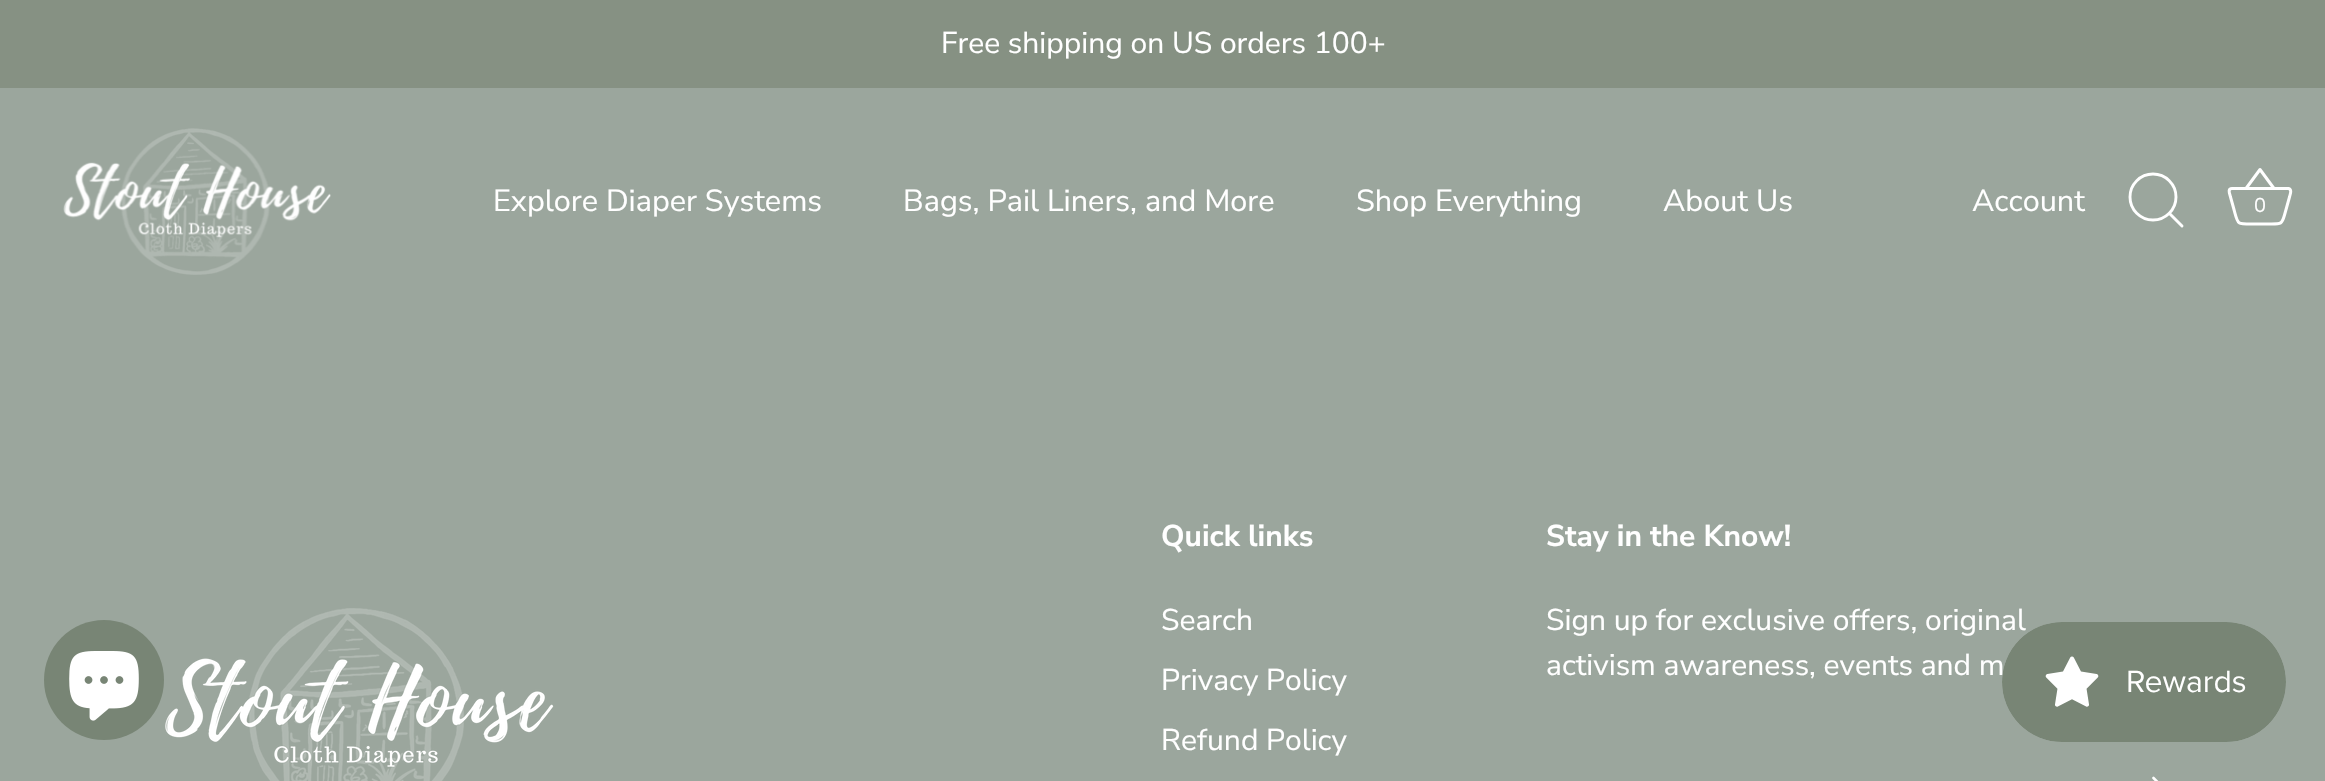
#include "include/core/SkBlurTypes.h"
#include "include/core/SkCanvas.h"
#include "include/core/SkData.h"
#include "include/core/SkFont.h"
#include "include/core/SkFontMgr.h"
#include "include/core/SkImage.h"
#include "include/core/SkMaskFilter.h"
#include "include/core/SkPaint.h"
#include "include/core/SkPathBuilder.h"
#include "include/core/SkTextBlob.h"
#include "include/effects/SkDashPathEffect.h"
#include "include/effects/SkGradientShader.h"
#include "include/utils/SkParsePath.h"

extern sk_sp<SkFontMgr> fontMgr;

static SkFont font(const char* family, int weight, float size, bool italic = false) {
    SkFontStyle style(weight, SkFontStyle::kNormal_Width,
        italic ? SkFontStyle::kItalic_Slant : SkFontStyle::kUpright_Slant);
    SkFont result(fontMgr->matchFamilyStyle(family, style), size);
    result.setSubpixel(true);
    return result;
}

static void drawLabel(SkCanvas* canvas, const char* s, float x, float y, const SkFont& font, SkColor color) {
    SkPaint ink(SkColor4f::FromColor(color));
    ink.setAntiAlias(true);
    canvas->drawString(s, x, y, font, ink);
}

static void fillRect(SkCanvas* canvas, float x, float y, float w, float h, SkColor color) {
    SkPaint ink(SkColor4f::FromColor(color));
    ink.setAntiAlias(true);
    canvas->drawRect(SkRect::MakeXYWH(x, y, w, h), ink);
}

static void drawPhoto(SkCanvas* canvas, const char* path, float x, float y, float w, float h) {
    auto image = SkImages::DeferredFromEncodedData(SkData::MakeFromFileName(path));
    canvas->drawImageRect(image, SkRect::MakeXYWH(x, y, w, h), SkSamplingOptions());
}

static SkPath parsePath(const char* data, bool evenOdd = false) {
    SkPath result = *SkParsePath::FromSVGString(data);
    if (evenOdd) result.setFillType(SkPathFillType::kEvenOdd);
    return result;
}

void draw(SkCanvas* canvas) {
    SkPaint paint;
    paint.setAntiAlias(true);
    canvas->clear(0xFF9BA69D);
    fillRect(canvas, 0, 0, 2325, 88, 0xFF869183);
    SkFont font1 = font("Nunito Sans", 400, 30);
    drawLabel(canvas, "Free shipping on US orders 100+", 941, 53, font1, 0xFFFFFFFF);
    drawPhoto(canvas, "assets/img1.png", 63, 128, 268, 147);
    SkFont font2 = font("Nunito Sans", 400, 30.6f);
    drawLabel(canvas, "Explore Diaper Systems", 493, 211, font2, 0xFFFFFFFF);
    drawLabel(canvas, "Bags, Pail Liners, and More", 903, 211, font2, 0xFFFFFFFF);
    drawLabel(canvas, "Shop Everything", 1356, 211, font2, 0xFFFFFFFF);
    drawLabel(canvas, "About Us", 1663, 211, font2, 0xFFFFFFFF);
    drawLabel(canvas, "Account", 1972, 211, font2, 0xFFFFFFFF);
    paint.setStroke(true);
    paint.setStrokeWidth(2.9f);
    paint.setColor(0xFFFFFFFF);
    canvas->drawCircle(2153, 197, 23, paint);
    paint.setStrokeCap(SkPaint::kRound_Cap);
    paint.setStrokeJoin(SkPaint::kRound_Join);
    canvas->drawPath(parsePath("M2182 226L2169.5 213.5"), paint);
    paint.setStrokeWidth(3);
    paint.setStrokeCap(SkPaint::kButt_Cap);
    canvas->drawPath(parsePath("M2232 188.5C2227 188.5 2230 194.5 2230.5 197L2233 206C2238.5 225 2235 224 2254 224H2271.5C2281 224 2282 224 2284.5 215L2289.5 197C2290 194.5 2292.5 189.5 2288.5 188.5H2232"), paint);
    canvas->drawPath(parsePath("M2246 188.5L2260 169.5L2274 188.5"), paint);
    SkFont font3 = font("Nunito Sans", 400, 20);
    drawLabel(canvas, "0", 2254, 212, font3, 0xFFFFFFFF);
    paint.setStroke(false);
    paint.setColor(0xFF788575);
    canvas->drawCircle(104, 680, 60, paint);
    drawPhoto(canvas, "assets/img2.png", 69, 651, 70, 70);
    drawPhoto(canvas, "assets/img3.png", 165, 608, 389, 173);
    SkFont font4 = font("Nunito Sans", 700, 30);
    drawLabel(canvas, "Quick links", 1161, 546, font4, 0xFFFFFFFF);
    drawLabel(canvas, "Search", 1161, 630, font1, 0xFFFFFFFF);
    drawLabel(canvas, "Privacy Policy", 1161, 690, font1, 0xFFFFFFFF);
    drawLabel(canvas, "Refund Policy", 1161, 750, font1, 0xFFFFFFFF);
    drawLabel(canvas, "Stay in the Know!", 1546, 546, font4, 0xFFFFFFFF);
    drawLabel(canvas, "Sign up for exclusive offers, original", 1546, 630, font1, 0xFFFFFFFF);
    drawLabel(canvas, "activism awareness, events and m", 1546, 675, font1, 0xFFFFFFFF);
    paint.setStroke(true);
    paint.setStrokeWidth(2.6f);
    paint.setStrokeCap(SkPaint::kRound_Cap);
    paint.setStrokeJoin(SkPaint::kMiter_Join);
    paint.setColor(0xFFFFFFFF);
    canvas->drawPath(parsePath("M2153.5 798L2163.5 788L2153.5 778"), paint);
    drawPhoto(canvas, "assets/img4.png", 2002, 622, 284, 120);
}
